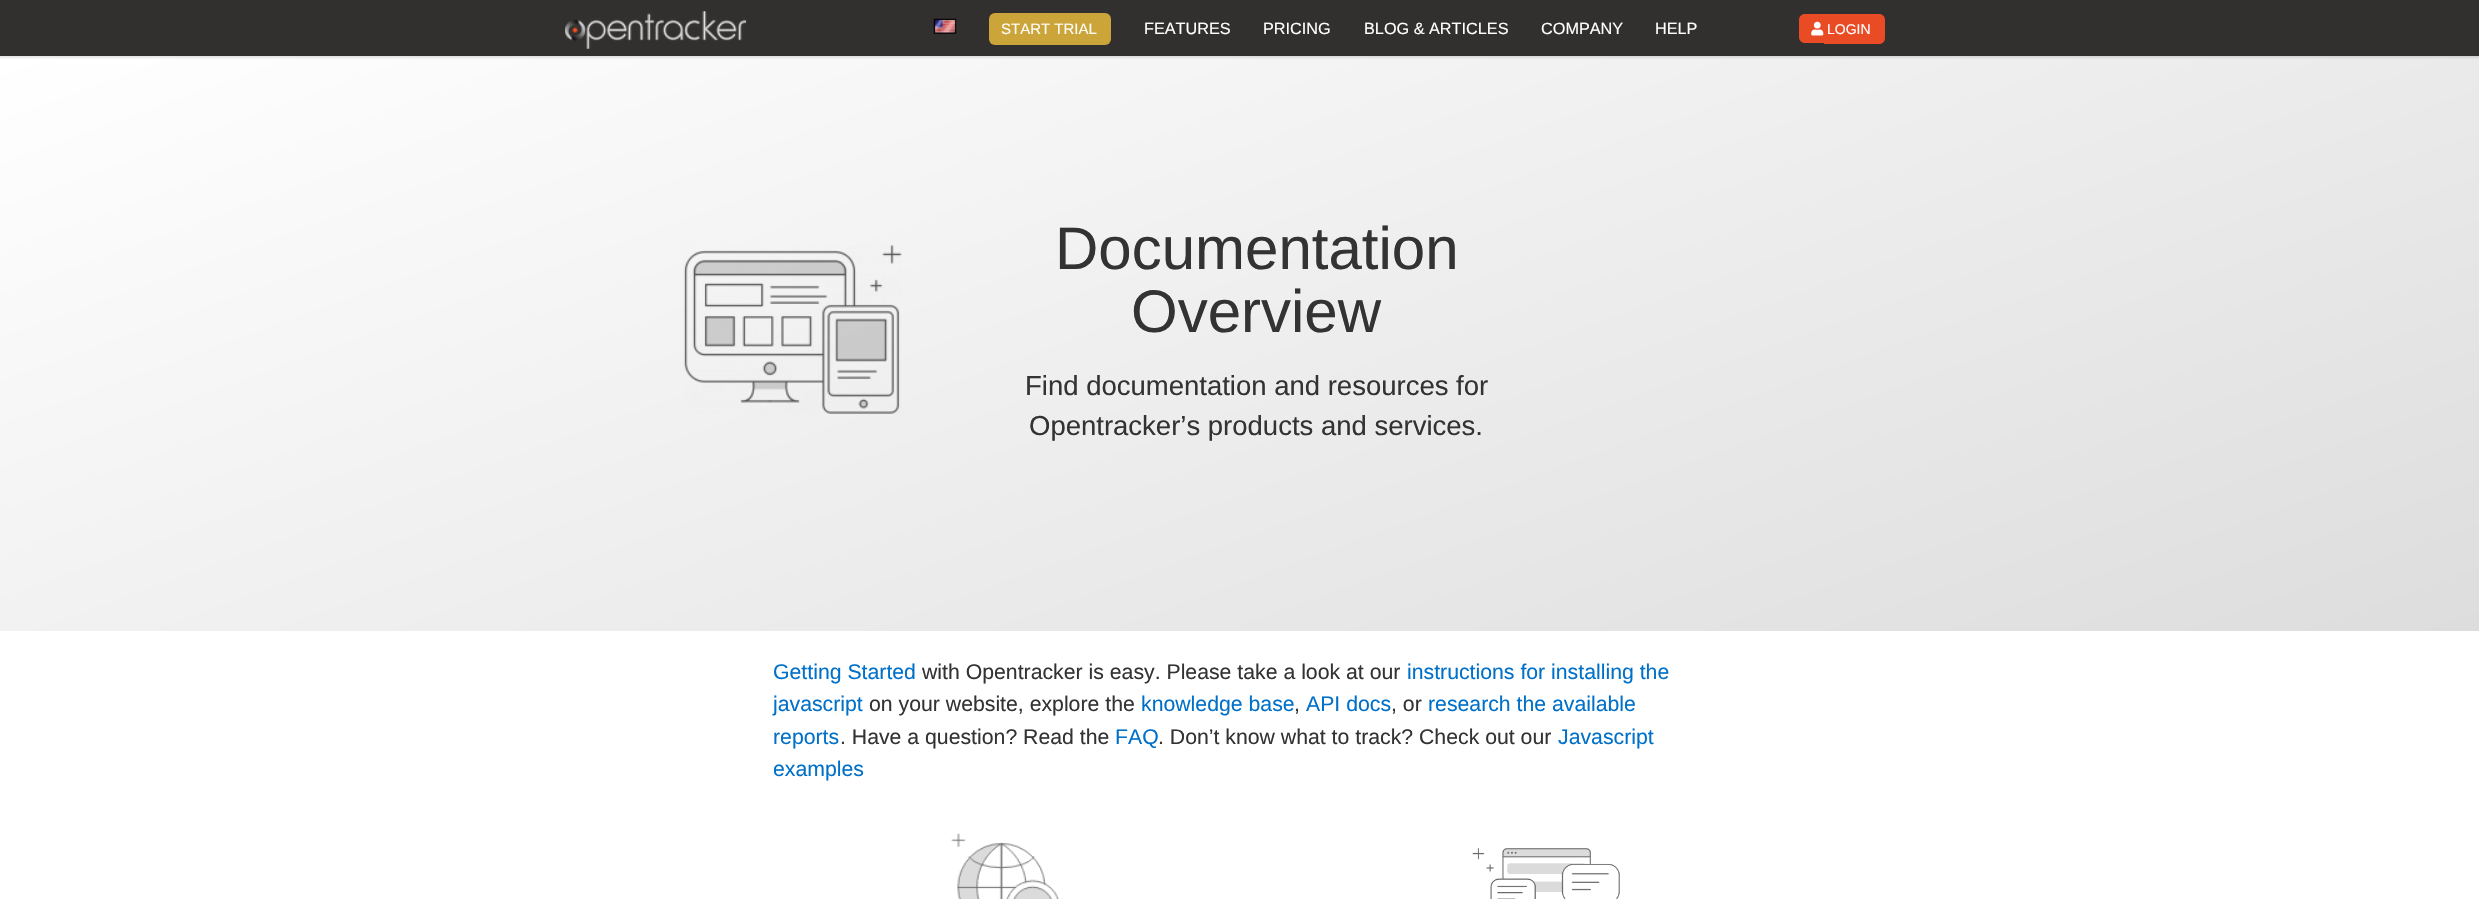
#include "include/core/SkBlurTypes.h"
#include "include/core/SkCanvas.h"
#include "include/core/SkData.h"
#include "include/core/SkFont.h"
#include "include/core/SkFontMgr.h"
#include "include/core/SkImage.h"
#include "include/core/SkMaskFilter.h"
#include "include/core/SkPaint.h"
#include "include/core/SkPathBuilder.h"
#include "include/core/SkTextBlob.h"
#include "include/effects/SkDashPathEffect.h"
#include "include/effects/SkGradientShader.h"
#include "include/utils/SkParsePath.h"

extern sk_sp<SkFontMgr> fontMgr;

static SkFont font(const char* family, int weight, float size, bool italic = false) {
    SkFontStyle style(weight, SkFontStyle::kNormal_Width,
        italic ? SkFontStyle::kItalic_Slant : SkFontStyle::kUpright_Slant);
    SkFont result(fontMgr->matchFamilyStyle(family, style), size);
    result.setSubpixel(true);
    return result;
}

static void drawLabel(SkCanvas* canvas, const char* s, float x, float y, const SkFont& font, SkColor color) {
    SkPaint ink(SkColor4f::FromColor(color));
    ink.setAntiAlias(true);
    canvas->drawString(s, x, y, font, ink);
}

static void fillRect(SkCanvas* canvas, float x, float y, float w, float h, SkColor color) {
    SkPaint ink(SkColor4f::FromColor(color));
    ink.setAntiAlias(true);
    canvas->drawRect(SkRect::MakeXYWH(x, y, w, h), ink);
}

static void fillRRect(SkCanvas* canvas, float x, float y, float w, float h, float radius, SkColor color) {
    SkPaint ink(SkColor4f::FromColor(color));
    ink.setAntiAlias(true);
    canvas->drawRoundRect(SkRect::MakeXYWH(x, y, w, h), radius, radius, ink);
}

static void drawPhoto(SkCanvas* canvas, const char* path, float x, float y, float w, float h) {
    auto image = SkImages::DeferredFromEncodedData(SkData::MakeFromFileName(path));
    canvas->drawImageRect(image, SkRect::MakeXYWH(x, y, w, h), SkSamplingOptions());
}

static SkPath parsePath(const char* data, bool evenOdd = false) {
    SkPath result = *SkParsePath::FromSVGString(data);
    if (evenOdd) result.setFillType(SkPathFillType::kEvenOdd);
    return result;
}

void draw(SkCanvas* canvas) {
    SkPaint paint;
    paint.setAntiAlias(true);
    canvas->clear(0xFF32302F);
    {
        const SkColor colors[] = {0xFFFFFFFF, 0xFFDDDDDD};
        const float stops[] = {0, 1};
        const SkPoint ends[] = {{1003, -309}, {1477, 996}};
        paint.setShader(SkGradientShader::MakeLinear(ends, colors, stops, 2, SkTileMode::kClamp));
        paint.setAlpha(255);
    }
    canvas->drawRect(SkRect::MakeXYWH(0, 56, 2479, 575), paint);
    canvas->save();
    canvas->clipRect(SkRect::MakeXYWH(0, 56, 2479, 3));
    paint.setShader(nullptr);
    paint.setColor(0x1A000000);
    paint.setMaskFilter(SkMaskFilter::MakeBlur(kNormal_SkBlurStyle, 1));
    canvas->drawRect(SkRect::MakeXYWH(-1, -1, 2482, 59), paint);
    paint.setMaskFilter(nullptr);
    canvas->restore();
    drawPhoto(canvas, "assets/img1.png", 565, 11, 182, 38);
    drawPhoto(canvas, "assets/img2.png", 933, 18, 24, 16);
    fillRRect(canvas, 989, 13, 122, 32, 6, 0xFFCBA53A);
    SkFont font1 = font("Liberation Sans", 400, 15);
    drawLabel(canvas, "START TRIAL", 1001, 34, font1, 0xFFFDFCF8);
    SkFont font2 = font("Liberation Sans", 400, 16.25f);
    drawLabel(canvas, "FEATURES", 1144, 34, font2, 0xFFFFFFFF);
    drawLabel(canvas, "PRICING", 1263, 34, font2, 0xFFFFFFFF);
    drawLabel(canvas, "BLOG & ARTICLES", 1364, 34, font2, 0xFFFFFFFF);
    drawLabel(canvas, "COMPANY", 1541, 34, font2, 0xFFFFFFFF);
    drawLabel(canvas, "HELP", 1655, 34, font2, 0xFFFFFFFF);
    paint.setColor(0xFFE94B24);
    canvas->drawPath(parsePath("M1805 14H1824V43H1805C1801.5 43 1799 40.5 1799 37V20C1799 16.5 1801.5 14 1805 14Z"), paint);
    canvas->drawPath(parsePath("M1824 14H1879C1882.5 14 1885 16.5 1885 20V38C1885 41.5 1882.5 44 1879 44H1824Z"), paint);
    drawPhoto(canvas, "assets/img3.png", 1811, 21, 13, 15);
    SkFont font3 = font("Liberation Sans", 400, 14);
    drawLabel(canvas, "LOGIN", 1827, 34, font3, 0xFFFFFFFF);
    fillRect(canvas, 0, 631, 2479, 268, 0xFFFFFFFF);
    drawPhoto(canvas, "assets/img4.png", 683, 244, 219, 170);
    SkFont font4 = font("Liberation Sans", 400, 60);
    drawLabel(canvas, "Documentation", 1055, 269, font4, 0xFF333333);
    drawLabel(canvas, "Overview", 1131, 332, font4, 0xFF333333);
    SkFont font5 = font("Liberation Sans", 400, 27.5f);
    drawLabel(canvas, "Find documentation and resources for", 1025, 395, font5, 0xFF333333);
    drawLabel(canvas, "Opentracker’s products and services.", 1029, 435, font5, 0xFF333333);
    SkFont font6 = font("Liberation Sans", 400, 21.25f);
    drawLabel(canvas, "Getting Started", 773, 679, font6, 0xFF0070C9);
    drawLabel(canvas, "with Opentracker is easy. Please take a look at our", 922, 679, font6, 0xFF333333);
    drawLabel(canvas, "instructions for installing the", 1407, 679, font6, 0xFF0070C9);
    drawLabel(canvas, "javascript", 773, 711, font6, 0xFF0070C9);
    drawLabel(canvas, "on your website, explore the", 869, 711, font6, 0xFF333333);
    drawLabel(canvas, "knowledge base", 1141, 711, font6, 0xFF0070C9);
    drawLabel(canvas, ",", 1294, 711, font6, 0xFF333333);
    drawLabel(canvas, "API docs", 1306, 711, font6, 0xFF0070C9);
    drawLabel(canvas, ", or", 1391, 711, font6, 0xFF333333);
    drawLabel(canvas, "research the available", 1428, 711, font6, 0xFF0070C9);
    drawLabel(canvas, "reports", 773, 744, font6, 0xFF0070C9);
    drawLabel(canvas, ". Have a question? Read the", 840, 744, font6, 0xFF333333);
    drawLabel(canvas, "FAQ", 1115, 744, font6, 0xFF0070C9);
    drawLabel(canvas, ". Don’t know what to track? Check out our", 1158, 744, font6, 0xFF333333);
    drawLabel(canvas, "Javascript", 1558, 744, font6, 0xFF0070C9);
    drawLabel(canvas, "examples", 773, 776, font6, 0xFF0070C9);
    drawPhoto(canvas, "assets/img5.png", 951, 833, 109, 66);
    drawPhoto(canvas, "assets/img6.png", 1472, 848, 148, 51);
}
